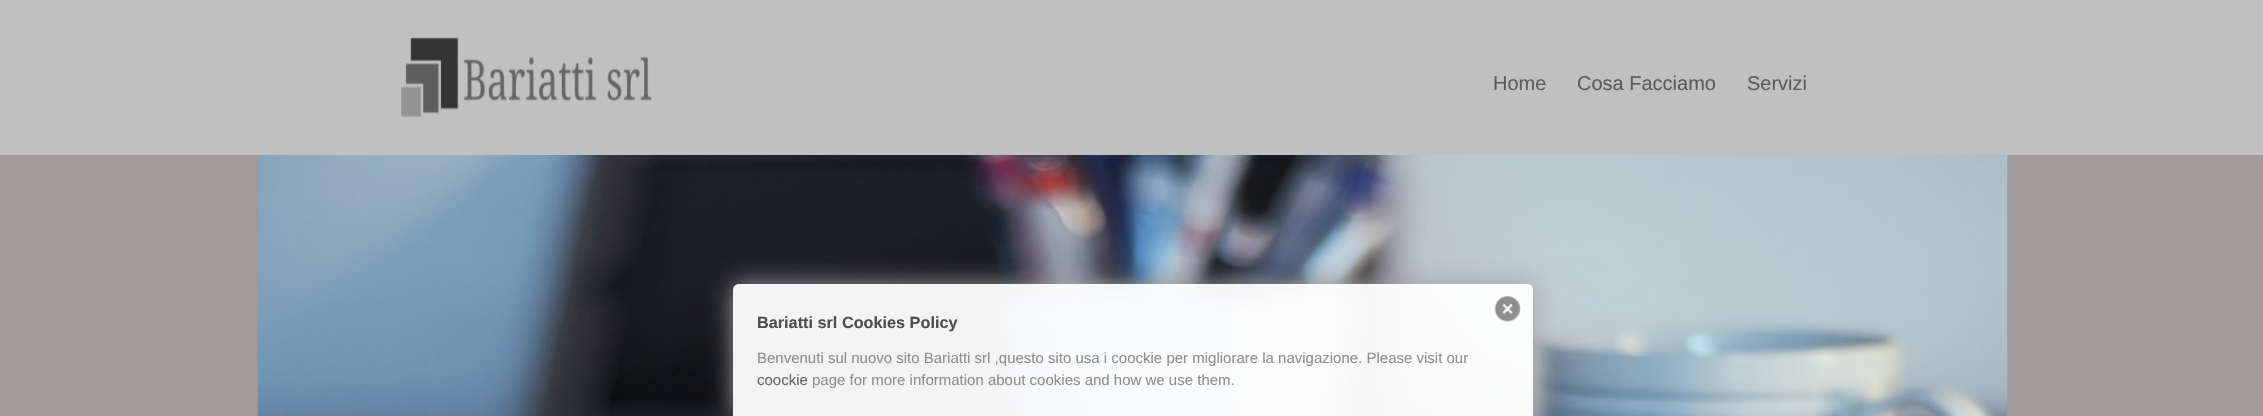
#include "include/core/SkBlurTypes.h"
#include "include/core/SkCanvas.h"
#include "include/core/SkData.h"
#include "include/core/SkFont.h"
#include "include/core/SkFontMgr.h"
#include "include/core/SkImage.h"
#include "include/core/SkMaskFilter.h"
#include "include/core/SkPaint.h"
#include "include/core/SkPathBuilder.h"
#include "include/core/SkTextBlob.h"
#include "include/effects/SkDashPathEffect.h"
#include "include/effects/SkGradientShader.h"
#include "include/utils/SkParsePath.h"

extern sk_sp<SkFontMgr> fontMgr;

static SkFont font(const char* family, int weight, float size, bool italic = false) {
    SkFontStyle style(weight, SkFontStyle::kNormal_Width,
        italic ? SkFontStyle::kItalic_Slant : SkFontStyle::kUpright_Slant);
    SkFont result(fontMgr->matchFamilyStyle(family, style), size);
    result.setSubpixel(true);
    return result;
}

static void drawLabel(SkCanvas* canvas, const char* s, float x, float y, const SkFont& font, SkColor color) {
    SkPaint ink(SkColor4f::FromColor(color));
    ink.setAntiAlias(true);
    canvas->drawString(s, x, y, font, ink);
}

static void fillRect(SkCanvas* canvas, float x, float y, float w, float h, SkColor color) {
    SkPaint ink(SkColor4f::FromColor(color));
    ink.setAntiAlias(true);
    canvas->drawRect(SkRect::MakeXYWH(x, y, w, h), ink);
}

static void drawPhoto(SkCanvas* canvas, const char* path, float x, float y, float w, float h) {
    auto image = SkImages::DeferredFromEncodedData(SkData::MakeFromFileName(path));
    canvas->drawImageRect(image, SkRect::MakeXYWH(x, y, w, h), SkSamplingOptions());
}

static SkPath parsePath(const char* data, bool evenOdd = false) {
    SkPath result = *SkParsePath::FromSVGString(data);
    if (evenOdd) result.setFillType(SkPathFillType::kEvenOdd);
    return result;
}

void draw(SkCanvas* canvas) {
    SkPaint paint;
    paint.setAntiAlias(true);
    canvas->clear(0xFFA29A9A);
    fillRect(canvas, 0, 0, 2263, 155, 0xFFC0C0C0);
    drawPhoto(canvas, "assets/img1.png", 401, 37, 251, 80);
    SkFont font1 = font("Liberation Sans", 400, 20);
    drawLabel(canvas, "Home", 1493, 90, font1, 0xFF5B5B5B);
    drawLabel(canvas, "Cosa Facciamo", 1577, 90, font1, 0xFF5B5B5B);
    drawLabel(canvas, "Servizi", 1747, 90, font1, 0xFF5B5B5B);
    drawPhoto(canvas, "assets/img2.png", 257, 155, 1751, 261);
    canvas->save();
    canvas->clipPath(parsePath("M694 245H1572V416H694ZM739 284H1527C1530.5 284 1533 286.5 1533 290V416H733V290C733 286.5 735.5 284 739 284Z", true), true);
    paint.setColor(0xF2A1A1A1);
    paint.setMaskFilter(SkMaskFilter::MakeBlur(kNormal_SkBlurStyle, 12.5f));
    canvas->drawRoundRect(SkRect::MakeXYWH(733, 284, 800, 132), 6, 6, paint);
    paint.setMaskFilter(nullptr);
    canvas->restore();
    paint.setColor(0xF2FFFFFF);
    canvas->drawPath(parsePath("M739 284H1527C1530.5 284 1533 286.5 1533 290V416H733V290C733 286.5 735.5 284 739 284Z"), paint);
    drawPhoto(canvas, "assets/img3.png", 1494, 296, 27, 26);
    SkFont font2 = font("Liberation Sans", 700, 16.25f);
    drawLabel(canvas, "Bariatti srl Cookies Policy", 757, 328, font2, 0xFF4D4D4D);
    SkFont font3 = font("Liberation Sans", 400, 15);
    drawLabel(canvas, "Benvenuti sul nuovo sito Bariatti srl ,questo sito usa i coockie per migliorare la navigazione. Please visit our", 757, 363, font3, 0xFF8E8E8E);
    drawLabel(canvas, "coockie", 757, 385, font3, 0xFF636363);
    drawLabel(canvas, "page for more information about cookies and how we use them.", 812, 385, font3, 0xFF8E8E8E);
}
